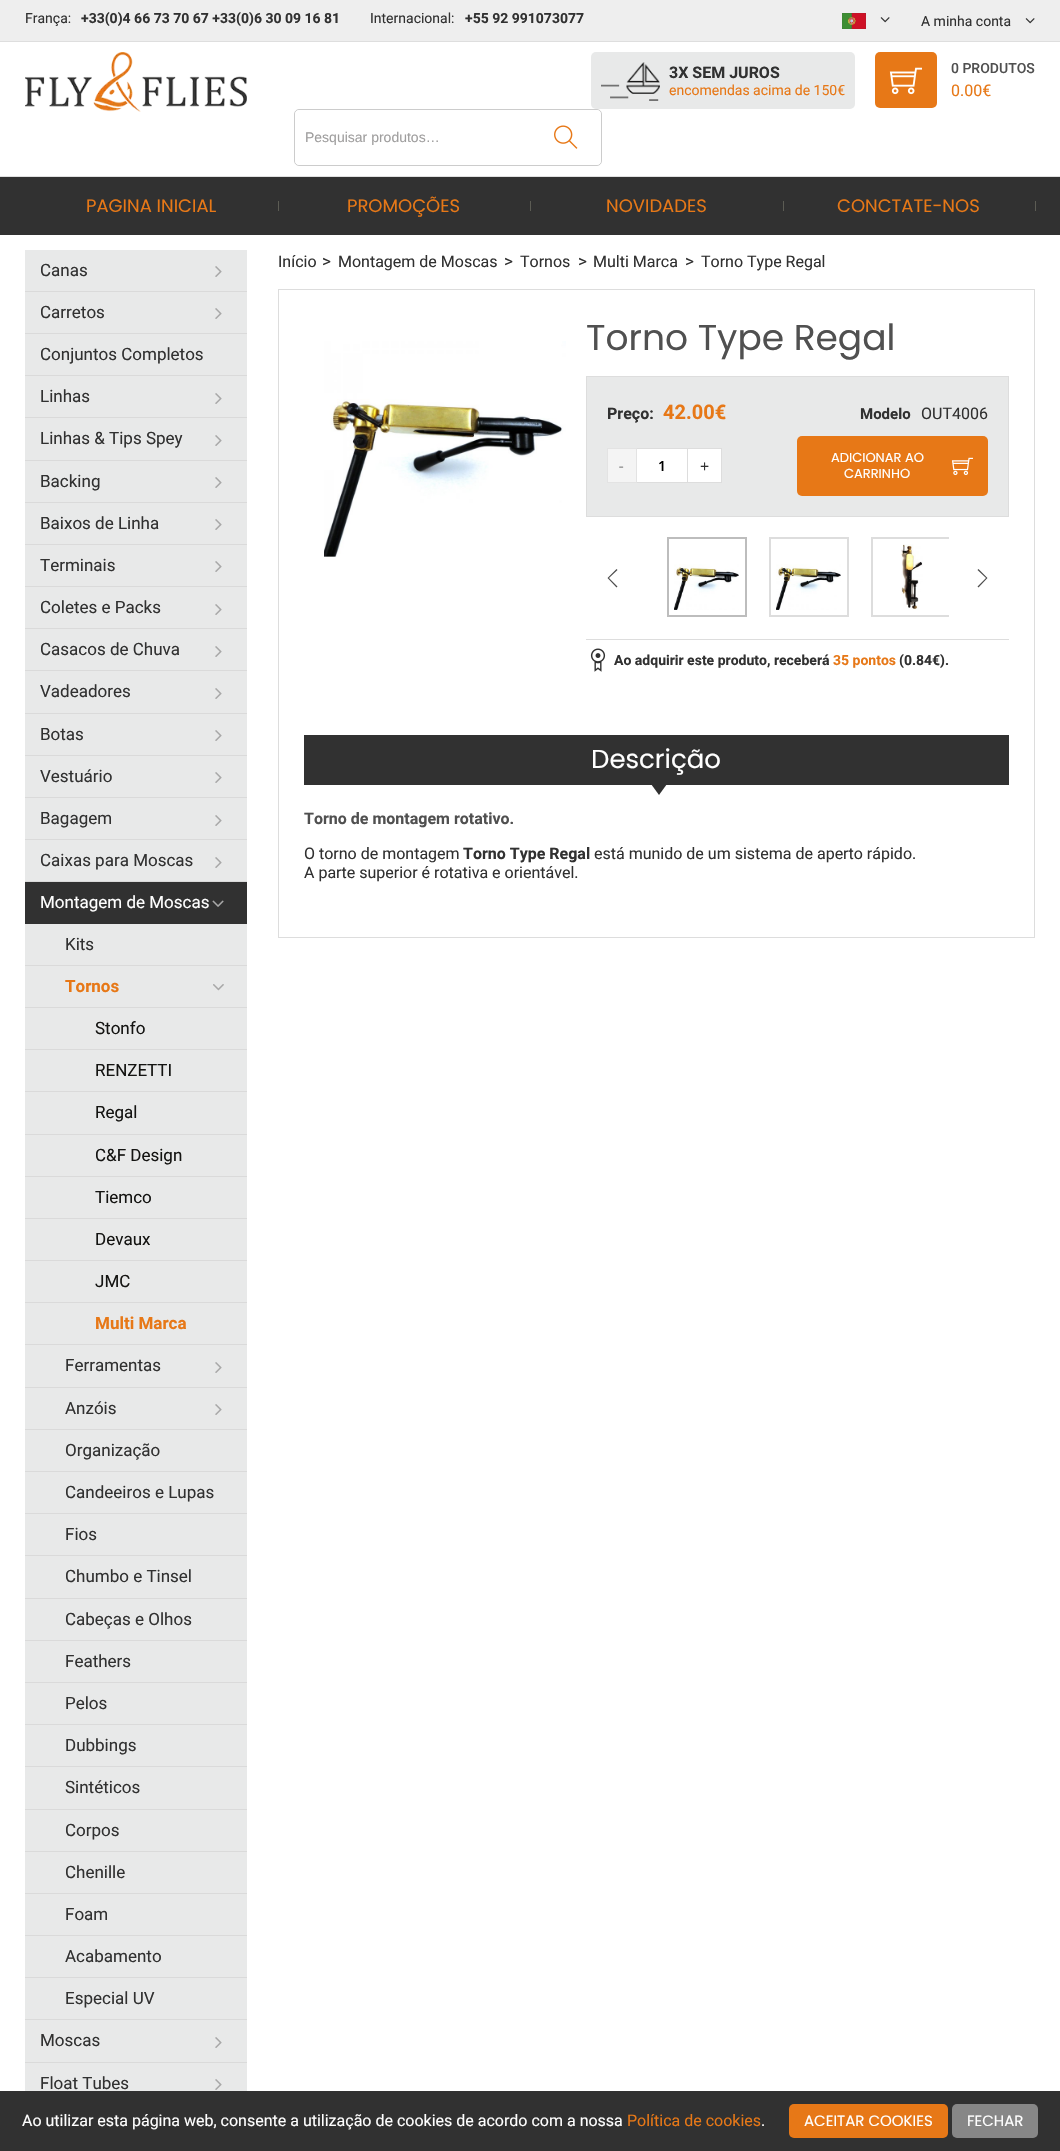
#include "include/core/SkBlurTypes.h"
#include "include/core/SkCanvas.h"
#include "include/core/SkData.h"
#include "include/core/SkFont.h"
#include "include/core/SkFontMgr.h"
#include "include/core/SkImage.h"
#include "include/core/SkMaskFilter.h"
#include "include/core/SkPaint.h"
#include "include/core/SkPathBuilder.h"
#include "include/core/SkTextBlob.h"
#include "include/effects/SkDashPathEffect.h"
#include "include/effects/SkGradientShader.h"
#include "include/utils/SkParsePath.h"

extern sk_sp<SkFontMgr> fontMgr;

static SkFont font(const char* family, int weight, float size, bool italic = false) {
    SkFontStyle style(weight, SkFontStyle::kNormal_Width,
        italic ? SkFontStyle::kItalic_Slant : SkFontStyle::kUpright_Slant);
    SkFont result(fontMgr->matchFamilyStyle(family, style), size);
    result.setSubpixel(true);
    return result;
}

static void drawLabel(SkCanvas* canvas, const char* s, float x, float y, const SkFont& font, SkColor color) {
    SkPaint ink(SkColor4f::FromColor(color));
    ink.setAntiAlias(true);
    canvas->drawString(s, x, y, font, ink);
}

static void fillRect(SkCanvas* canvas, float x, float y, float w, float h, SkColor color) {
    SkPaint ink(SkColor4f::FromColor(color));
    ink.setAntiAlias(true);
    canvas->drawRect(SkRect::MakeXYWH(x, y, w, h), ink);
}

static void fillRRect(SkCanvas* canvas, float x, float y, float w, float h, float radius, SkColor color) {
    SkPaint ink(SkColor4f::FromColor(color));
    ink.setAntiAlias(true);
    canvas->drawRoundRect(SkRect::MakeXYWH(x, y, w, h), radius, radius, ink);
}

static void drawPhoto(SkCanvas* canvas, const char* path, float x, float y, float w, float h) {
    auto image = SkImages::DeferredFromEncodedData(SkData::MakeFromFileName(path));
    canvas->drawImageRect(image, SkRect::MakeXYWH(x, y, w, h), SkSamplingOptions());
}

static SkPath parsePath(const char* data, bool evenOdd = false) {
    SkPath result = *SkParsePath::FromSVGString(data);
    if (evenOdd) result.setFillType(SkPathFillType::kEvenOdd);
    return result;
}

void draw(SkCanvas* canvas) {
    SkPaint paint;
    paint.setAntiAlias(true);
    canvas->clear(0xFFFFFFFF);
    fillRect(canvas, 0, 0, 1060, 41, 0xFFEEEEEE);
    fillRect(canvas, 0, 41, 1060, 1, 0xFFDEDEDE);
    SkFont font1 = font("Roboto", 400, 14);
    drawLabel(canvas, "França:", 25, 23, font1, 0xFF313131);
    SkFont font2 = font("Roboto", 700, 14);
    drawLabel(canvas, "+33(0)4 66 73 70 67 +33(0)6 30 09 16 81", 81, 23, font2, 0xFF313131);
    drawLabel(canvas, "Internacional:", 370, 23, font1, 0xFF313131);
    drawLabel(canvas, "+55 92 991073077", 465, 23, font2, 0xFF313131);
    drawPhoto(canvas, "assets/img1.png", 842, 13, 24, 16);
    drawPhoto(canvas, "assets/img2.png", 880, 17, 10, 6);
    drawLabel(canvas, "A minha conta", 921, 26, font1, 0xFF313131);
    drawPhoto(canvas, "assets/img2.png", 1025, 18, 10, 6);
    fillRect(canvas, 0, 176, 1060, 1, 0xFFE0E0E0);
    drawPhoto(canvas, "assets/img3.png", 25, 52, 222, 60);
    fillRRect(canvas, 591, 52, 264, 57, 5, 0xFFE8E9E9);
    drawPhoto(canvas, "assets/img4.png", 601, 62, 59, 39);
    SkFont font3 = font("Roboto", 700, 16);
    drawLabel(canvas, "3X SEM JUROS", 669, 78, font3, 0xFF313131);
    drawLabel(canvas, "encomendas acima de 150€", 669, 95, font1, 0xFFE77817);
    fillRRect(canvas, 875, 52, 62, 56, 5, 0xFFE77817);
    drawPhoto(canvas, "assets/img5.png", 889, 67, 33, 28);
    SkFont font4 = font("Roboto", 500, 14);
    drawLabel(canvas, "0 PRODUTOS", 951, 73, font4, 0xFF505050);
    SkFont font5 = font("Roboto", 400, 16);
    drawLabel(canvas, "0.00€", 951, 96, font5, 0xFFE77817);
    paint.setStroke(true);
    paint.setStrokeWidth(1);
    paint.setColor(0xFFCCCCCC);
    canvas->drawRoundRect(SkRect::MakeXYWH(294.5f, 109.5f, 307, 56), 4.5f, 4.5f, paint);
    fillRRect(canvas, 295, 110, 306, 55, 5, 0xFFFFFFFF);
    SkFont font6 = font("Liberation Sans", 400, 14);
    drawLabel(canvas, "Pesquisar produtos…", 305, 142, font6, 0xFF9F9E9E);
    drawPhoto(canvas, "assets/img6.png", 554, 125, 24, 24);
    fillRect(canvas, 0, 177, 1060, 58, 0xFF313131);
    SkFont font7 = font("Poppins", 400, 18);
    drawLabel(canvas, "PAGINA INICIAL", 86, 212, font7, 0xFFE77817);
    fillRect(canvas, 278, 201, 1, 10, 0xFF5C5C54);
    drawLabel(canvas, "PROMOÇÕES", 347, 212, font7, 0xFFE77817);
    fillRect(canvas, 530, 201, 1, 10, 0xFF5C5C54);
    drawLabel(canvas, "NOVIDADES", 606, 212, font7, 0xFFE77817);
    fillRect(canvas, 783, 201, 1, 10, 0xFF5C5C54);
    drawLabel(canvas, "CONCTATE-NOS", 837, 212, font7, 0xFFE77817);
    fillRect(canvas, 1035, 201, 1, 10, 0xFF5C5C54);
    fillRect(canvas, 25, 250, 222, 1841, 0xFFE8E9E9);
    fillRect(canvas, 25, 291, 222, 1, 0xFFDADADA);
    SkFont font8 = font("Roboto", 400, 17);
    drawLabel(canvas, "Canas", 40, 276, font8, 0xFF313131);
    drawPhoto(canvas, "assets/img7.png", 215, 266, 7, 11);
    fillRect(canvas, 25, 333, 222, 1, 0xFFDADADA);
    drawLabel(canvas, "Carretos", 40, 318, font8, 0xFF313131);
    drawPhoto(canvas, "assets/img7.png", 215, 308, 7, 11);
    fillRect(canvas, 25, 375, 222, 1, 0xFFDADADA);
    drawLabel(canvas, "Conjuntos Completos", 40, 360, font8, 0xFF313131);
    fillRect(canvas, 25, 417, 222, 1, 0xFFDADADA);
    drawLabel(canvas, "Linhas", 40, 402, font8, 0xFF313131);
    drawPhoto(canvas, "assets/img7.png", 215, 393, 7, 11);
    fillRect(canvas, 25, 460, 222, 1, 0xFFDADADA);
    drawLabel(canvas, "Linhas & Tips Spey", 40, 444, font8, 0xFF313131);
    drawPhoto(canvas, "assets/img7.png", 215, 435, 7, 11);
    fillRect(canvas, 25, 502, 222, 1, 0xFFDADADA);
    drawLabel(canvas, "Backing", 40, 487, font8, 0xFF313131);
    drawPhoto(canvas, "assets/img7.png", 215, 477, 7, 11);
    fillRect(canvas, 25, 544, 222, 1, 0xFFDADADA);
    drawLabel(canvas, "Baixos de Linha", 40, 529, font8, 0xFF313131);
    drawPhoto(canvas, "assets/img7.png", 215, 519, 7, 11);
    fillRect(canvas, 25, 586, 222, 1, 0xFFDADADA);
    drawLabel(canvas, "Terminais", 40, 571, font8, 0xFF313131);
    drawPhoto(canvas, "assets/img7.png", 215, 561, 7, 11);
    fillRect(canvas, 25, 628, 222, 1, 0xFFDADADA);
    drawLabel(canvas, "Coletes e Packs", 40, 613, font8, 0xFF313131);
    drawPhoto(canvas, "assets/img7.png", 215, 604, 7, 11);
    fillRect(canvas, 25, 670, 222, 1, 0xFFDADADA);
    drawLabel(canvas, "Casacos de Chuva", 40, 655, font8, 0xFF313131);
    drawPhoto(canvas, "assets/img7.png", 215, 646, 7, 11);
    fillRect(canvas, 25, 713, 222, 1, 0xFFDADADA);
    drawLabel(canvas, "Vadeadores", 40, 697, font8, 0xFF313131);
    drawPhoto(canvas, "assets/img7.png", 215, 688, 7, 11);
    fillRect(canvas, 25, 755, 222, 1, 0xFFDADADA);
    drawLabel(canvas, "Botas", 40, 740, font8, 0xFF313131);
    drawPhoto(canvas, "assets/img7.png", 215, 730, 7, 11);
    fillRect(canvas, 25, 797, 222, 1, 0xFFDADADA);
    drawLabel(canvas, "Vestuário", 40, 782, font8, 0xFF313131);
    drawPhoto(canvas, "assets/img7.png", 215, 772, 7, 11);
    fillRect(canvas, 25, 839, 222, 1, 0xFFDADADA);
    drawLabel(canvas, "Bagagem", 40, 824, font8, 0xFF313131);
    drawPhoto(canvas, "assets/img7.png", 215, 815, 7, 11);
    fillRect(canvas, 25, 881, 222, 1, 0xFFDADADA);
    drawLabel(canvas, "Caixas para Moscas", 40, 866, font8, 0xFF313131);
    drawPhoto(canvas, "assets/img7.png", 215, 857, 7, 11);
    fillRect(canvas, 25, 882, 222, 42, 0xFF313131);
    drawLabel(canvas, "Montagem de Moscas", 40, 908, font8, 0xFFFFFFFF);
    drawPhoto(canvas, "assets/img8.png", 212, 900, 12, 7);
    fillRect(canvas, 25, 965, 222, 1, 0xFFDADADA);
    drawLabel(canvas, "Kits", 65, 950, font8, 0xFF313131);
    fillRect(canvas, 25, 1007, 222, 1, 0xFFDADADA);
    SkFont font9 = font("Roboto", 700, 17);
    drawLabel(canvas, "Tornos", 65, 992, font9, 0xFFE77817);
    drawPhoto(canvas, "assets/img9.png", 213, 984, 11, 7);
    fillRect(canvas, 25, 1049, 222, 1, 0xFFDADADA);
    drawLabel(canvas, "Stonfo", 95, 1034, font8, 0xFF141412);
    fillRect(canvas, 25, 1091, 222, 1, 0xFFDADADA);
    drawLabel(canvas, "RENZETTI", 95, 1076, font8, 0xFF141412);
    fillRect(canvas, 25, 1134, 222, 1, 0xFFDADADA);
    drawLabel(canvas, "Regal", 95, 1118, font8, 0xFF141412);
    fillRect(canvas, 25, 1176, 222, 1, 0xFFDADADA);
    drawLabel(canvas, "C&F Design", 95, 1161, font8, 0xFF141412);
    fillRect(canvas, 25, 1218, 222, 1, 0xFFDADADA);
    drawLabel(canvas, "Tiemco", 95, 1203, font8, 0xFF141412);
    fillRect(canvas, 25, 1260, 222, 1, 0xFFDADADA);
    drawLabel(canvas, "Devaux", 95, 1245, font8, 0xFF141412);
    fillRect(canvas, 25, 1302, 222, 1, 0xFFDADADA);
    drawLabel(canvas, "JMC", 95, 1287, font8, 0xFF141412);
    fillRect(canvas, 25, 1344, 222, 1, 0xFFDADADA);
    drawLabel(canvas, "Multi Marca", 95, 1329, font9, 0xFFE77817);
    fillRect(canvas, 25, 1387, 222, 1, 0xFFDADADA);
    drawLabel(canvas, "Ferramentas", 65, 1371, font8, 0xFF313131);
    drawPhoto(canvas, "assets/img7.png", 215, 1362, 7, 11);
    fillRect(canvas, 25, 1429, 222, 1, 0xFFDADADA);
    drawLabel(canvas, "Anzóis", 65, 1414, font8, 0xFF313131);
    drawPhoto(canvas, "assets/img7.png", 215, 1404, 7, 11);
    fillRect(canvas, 25, 1471, 222, 1, 0xFFDADADA);
    drawLabel(canvas, "Organização", 65, 1456, font8, 0xFF313131);
    fillRect(canvas, 25, 1513, 222, 1, 0xFFDADADA);
    drawLabel(canvas, "Candeeiros e Lupas", 65, 1498, font8, 0xFF313131);
    fillRect(canvas, 25, 1555, 222, 1, 0xFFDADADA);
    drawLabel(canvas, "Fios", 65, 1540, font8, 0xFF313131);
    fillRect(canvas, 25, 1598, 222, 1, 0xFFDADADA);
    drawLabel(canvas, "Chumbo e Tinsel", 65, 1582, font8, 0xFF313131);
    fillRect(canvas, 25, 1640, 222, 1, 0xFFDADADA);
    drawLabel(canvas, "Cabeças e Olhos", 65, 1625, font8, 0xFF313131);
    fillRect(canvas, 25, 1682, 222, 1, 0xFFDADADA);
    drawLabel(canvas, "Feathers", 65, 1667, font8, 0xFF313131);
    fillRect(canvas, 25, 1724, 222, 1, 0xFFDADADA);
    drawLabel(canvas, "Pelos", 65, 1709, font8, 0xFF313131);
    fillRect(canvas, 25, 1766, 222, 1, 0xFFDADADA);
    drawLabel(canvas, "Dubbings", 65, 1751, font8, 0xFF313131);
    fillRect(canvas, 25, 1809, 222, 1, 0xFFDADADA);
    drawLabel(canvas, "Sintéticos", 65, 1793, font8, 0xFF313131);
    fillRect(canvas, 25, 1851, 222, 1, 0xFFDADADA);
    drawLabel(canvas, "Corpos", 65, 1836, font8, 0xFF313131);
    fillRect(canvas, 25, 1893, 222, 1, 0xFFDADADA);
    drawLabel(canvas, "Chenille", 65, 1878, font8, 0xFF313131);
    fillRect(canvas, 25, 1935, 222, 1, 0xFFDADADA);
    drawLabel(canvas, "Foam", 65, 1920, font8, 0xFF313131);
    fillRect(canvas, 25, 1977, 222, 1, 0xFFDADADA);
    drawLabel(canvas, "Acabamento", 65, 1962, font8, 0xFF313131);
    fillRect(canvas, 25, 2019, 222, 1, 0xFFDADADA);
    drawLabel(canvas, "Especial UV", 65, 2004, font8, 0xFF313131);
    fillRect(canvas, 25, 2062, 222, 1, 0xFFDADADA);
    drawLabel(canvas, "Moscas", 40, 2046, font8, 0xFF313131);
    drawPhoto(canvas, "assets/img7.png", 215, 2037, 7, 11);
    drawLabel(canvas, "Float Tubes", 40, 2089, font8, 0xFF313131);
    drawPhoto(canvas, "assets/img7.png", 215, 2079, 7, 11);
    drawLabel(canvas, "Início", 278, 267, font5, 0xFF313131);
    drawLabel(canvas, ">", 322, 267, font8, 0xFF313131);
    drawLabel(canvas, "Montagem de Moscas", 338, 267, font5, 0xFF313131);
    drawLabel(canvas, ">", 504, 267, font8, 0xFF313131);
    drawLabel(canvas, "Tornos", 520, 267, font5, 0xFF313131);
    drawLabel(canvas, ">", 578, 267, font8, 0xFF313131);
    drawLabel(canvas, "Multi Marca", 593, 267, font5, 0xFF313131);
    drawLabel(canvas, ">", 685, 267, font8, 0xFF313131);
    drawLabel(canvas, "Torno Type Regal", 701, 267, font5, 0xFF313131);
    paint.setColor(0xFFDDDDDD);
    canvas->drawRect(SkRect::MakeXYWH(278.5f, 289.5f, 756, 648), paint);
    drawPhoto(canvas, "assets/img10.png", 324, 341, 242, 216);
    SkFont font10 = font("Poppins", 400, 36);
    drawLabel(canvas, "Torno Type Regal", 586, 350, font10, 0xFF505050);
    paint.setStroke(false);
    paint.setColor(0xFFE8E9E9);
    canvas->drawRect(SkRect::MakeXYWH(586.5f, 376.5f, 422, 140), paint);
    paint.setStroke(true);
    paint.setColor(0xFFDDDDDD);
    canvas->drawRect(SkRect::MakeXYWH(586.5f, 376.5f, 422, 140), paint);
    drawLabel(canvas, "Preço:", 607, 419, font3, 0xFF313131);
    SkFont font11 = font("Roboto", 700, 20);
    drawLabel(canvas, "42.00€", 663, 419, font11, 0xFFE77817);
    SkFont font12 = font("Roboto", 700, 15);
    drawLabel(canvas, "Modelo", 860, 419, font12, 0xFF313131);
    drawLabel(canvas, "OUT4006", 921, 419, font5, 0xFF313131);
    paint.setStroke(false);
    paint.setColor(0xFFF4F4F4);
    canvas->drawRect(SkRect::MakeXYWH(607.5f, 448.5f, 29, 34), paint);
    paint.setStroke(true);
    paint.setColor(0xFFE3E3E3);
    canvas->drawRect(SkRect::MakeXYWH(607.5f, 448.5f, 29, 34), paint);
    drawLabel(canvas, "-", 619, 472, font5, 0xFF8D8D8D);
    fillRect(canvas, 637, 449, 50, 33, 0xFFFFFFFF);
    fillRect(canvas, 637, 448, 50, 1, 0xFFDDDDDD);
    fillRect(canvas, 637, 482, 50, 1, 0xFFDDDDDD);
    SkFont font13 = font("Open Sans", 600, 14);
    drawLabel(canvas, "1", 658, 471, font13, 0xFF000000);
    paint.setStroke(false);
    paint.setColor(0xFFFFFFFF);
    canvas->drawRect(SkRect::MakeXYWH(687.5f, 448.5f, 34, 34), paint);
    paint.setStroke(true);
    paint.setColor(0xFFDDDDDD);
    canvas->drawRect(SkRect::MakeXYWH(687.5f, 448.5f, 34, 34), paint);
    SkFont font14 = font("Open Sans", 400, 16);
    drawLabel(canvas, "+", 700, 472, font14, 0xFF313131);
    fillRRect(canvas, 797, 436, 191, 60, 5, 0xFFE77817);
    SkFont font15 = font("Poppins", 400, 13);
    drawLabel(canvas, "ADICIONAR AO", 831, 462, font15, 0xFFFFFFFF);
    drawPhoto(canvas, "assets/img11.png", 951, 457, 22, 19);
    drawLabel(canvas, "CARRINHO", 844, 478, font15, 0xFFFFFFFF);
    paint.setStroke(false);
    paint.setColor(0xFF4D4D4D);
    canvas->drawPath(parsePath("M609 578L617.5 586.5L616.5 587.5L607.5 578L616.5 569L617.5 570Z"), paint);
    paint.setStroke(true);
    paint.setStrokeWidth(2);
    paint.setColor(0xFFBDBDBD);
    canvas->drawRect(SkRect::MakeXYWH(668, 538, 78, 78), paint);
    drawPhoto(canvas, "assets/img12.png", 674, 564, 65, 46);
    paint.setColor(0xFFDDDDDD);
    canvas->drawRect(SkRect::MakeXYWH(770, 538, 78, 78), paint);
    drawPhoto(canvas, "assets/img13.png", 776, 564, 65, 46);
    canvas->save();
    canvas->clipRect(SkRect::MakeXYWH(646, 537, 303, 87));
    canvas->drawRect(SkRect::MakeXYWH(872, 538, 78, 78), paint);
    canvas->restore();
    drawPhoto(canvas, "assets/img14.png", 901, 544, 22, 66);
    paint.setStroke(false);
    paint.setColor(0xFF4D4D4D);
    canvas->drawPath(parsePath("M987.5 578L978.5 587.5L977.5 586.5L986 578L977.5 570L978.5 569Z"), paint);
    fillRect(canvas, 586, 639, 423, 1, 0xFFDDDDDD);
    drawPhoto(canvas, "assets/img15.png", 590, 648, 16, 24);
    drawLabel(canvas, "Ao adquirir este produto, receberá", 614, 665, font2, 0xFF313131);
    drawLabel(canvas, "35 pontos", 833, 665, font2, 0xFFE77817);
    drawLabel(canvas, "(0.84€).", 899, 665, font2, 0xFF313131);
    fillRect(canvas, 304, 735, 705, 50, 0xFF313131);
    SkFont font16 = font("Poppins", 400, 26);
    drawLabel(canvas, "Descrição", 591, 768, font16, 0xFFFFFFFF);
    paint.setColor(0xFF313131);
    canvas->drawPath(parsePath("M651 784H667L659 795Z"), paint);
    drawLabel(canvas, "Torno de montagem rotativo.", 304, 824, font3, 0xFF505050);
    drawLabel(canvas, "O torno de montagem", 304, 859, font5, 0xFF313131);
    drawLabel(canvas, "Torno Type Regal", 463, 859, font3, 0xFF313131);
    drawLabel(canvas, "está munido de um sistema de aperto rápido.", 594, 859, font5, 0xFF313131);
    drawLabel(canvas, "A parte superior é rotativa e orientável.", 304, 878, font5, 0xFF313131);
    fillRect(canvas, 0, 2091, 1060, 60, 0xFF313131);
    drawLabel(canvas, "Ao utilizar esta página web, consente a utilização de cookies de acordo com a nossa", 22, 2126, font5, 0xFFFFFFFF);
    drawLabel(canvas, "Política de cookies", 627, 2126, font5, 0xFFE77817);
    drawLabel(canvas, ".", 761, 2126, font5, 0xFFFFFFFF);
    fillRRect(canvas, 789, 2104, 159, 34, 5, 0xFFE77817);
    SkFont font17 = font("Poppins", 400, 15);
    drawLabel(canvas, "ACEITAR COOKIES", 804, 2126, font17, 0xFFFFFFFF);
    fillRRect(canvas, 952, 2104, 86, 34, 5, 0xFF878787);
    drawLabel(canvas, "FECHAR", 967, 2126, font17, 0xFFFFFFFF);
}
